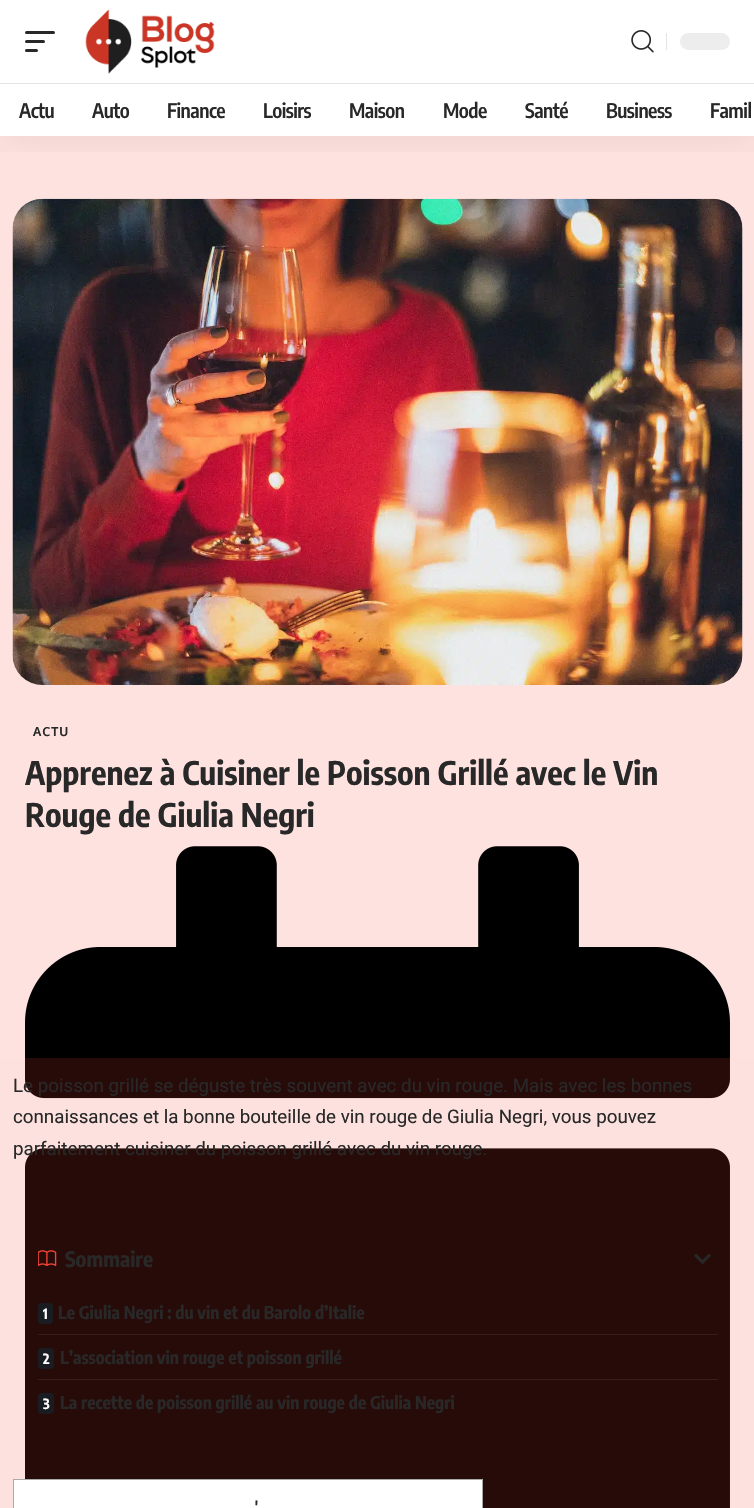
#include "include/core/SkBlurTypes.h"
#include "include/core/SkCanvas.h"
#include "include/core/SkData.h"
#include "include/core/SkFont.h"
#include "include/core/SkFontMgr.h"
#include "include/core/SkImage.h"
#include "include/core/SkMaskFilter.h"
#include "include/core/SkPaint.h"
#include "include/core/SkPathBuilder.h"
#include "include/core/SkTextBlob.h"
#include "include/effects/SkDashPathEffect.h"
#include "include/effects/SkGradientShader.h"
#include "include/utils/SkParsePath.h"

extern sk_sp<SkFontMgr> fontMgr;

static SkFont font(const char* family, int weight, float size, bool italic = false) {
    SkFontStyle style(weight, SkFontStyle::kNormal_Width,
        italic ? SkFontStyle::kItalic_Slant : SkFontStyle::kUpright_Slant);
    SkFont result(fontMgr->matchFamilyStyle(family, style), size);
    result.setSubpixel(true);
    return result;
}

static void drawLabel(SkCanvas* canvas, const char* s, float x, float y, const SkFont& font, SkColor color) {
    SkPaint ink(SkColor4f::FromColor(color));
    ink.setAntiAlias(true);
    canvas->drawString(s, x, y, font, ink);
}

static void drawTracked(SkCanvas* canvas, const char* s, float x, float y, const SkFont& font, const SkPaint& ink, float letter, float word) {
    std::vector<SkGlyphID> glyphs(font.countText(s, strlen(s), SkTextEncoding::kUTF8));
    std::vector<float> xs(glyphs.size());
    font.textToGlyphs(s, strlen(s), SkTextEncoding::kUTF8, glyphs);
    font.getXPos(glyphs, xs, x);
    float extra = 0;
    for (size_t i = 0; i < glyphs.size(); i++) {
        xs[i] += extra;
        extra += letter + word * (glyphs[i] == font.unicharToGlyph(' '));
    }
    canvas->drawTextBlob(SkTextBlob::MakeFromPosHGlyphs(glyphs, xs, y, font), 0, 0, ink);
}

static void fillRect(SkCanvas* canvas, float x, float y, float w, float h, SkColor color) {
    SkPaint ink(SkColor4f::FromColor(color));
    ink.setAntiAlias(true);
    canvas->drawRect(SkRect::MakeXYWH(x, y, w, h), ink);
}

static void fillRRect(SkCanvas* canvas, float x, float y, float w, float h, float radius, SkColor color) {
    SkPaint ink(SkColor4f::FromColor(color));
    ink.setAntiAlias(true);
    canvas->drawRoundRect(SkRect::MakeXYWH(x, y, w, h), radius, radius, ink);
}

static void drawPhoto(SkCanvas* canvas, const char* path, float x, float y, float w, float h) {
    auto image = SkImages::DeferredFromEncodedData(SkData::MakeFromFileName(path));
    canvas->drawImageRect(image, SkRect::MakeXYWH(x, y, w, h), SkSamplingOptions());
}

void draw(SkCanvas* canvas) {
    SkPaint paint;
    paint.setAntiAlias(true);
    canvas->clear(0xFFFFFFFF);
    fillRect(canvas, 0, 136, 754, 922, 0xFFFEE2E0);
    drawPhoto(canvas, "assets/img3.png", 12, 198, 731, 487);
    canvas->save();
    canvas->clipRect(SkRect::MakeXYWH(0, 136, 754, 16));
    paint.setColor(0x12000000);
    paint.setMaskFilter(SkMaskFilter::MakeBlur(kNormal_SkBlurStyle, 19));
    canvas->drawRect(SkRect::MakeXYWH(0, 5, 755, 136), paint);
    paint.setMaskFilter(nullptr);
    canvas->restore();
    fillRRect(canvas, 25, 31, 30, 3, 1.5f, 0xFF282828);
    fillRRect(canvas, 25, 40, 20, 3, 1.5f, 0xFF282828);
    fillRRect(canvas, 25, 49, 13, 3, 1.5f, 0xFF282828);
    drawPhoto(canvas, "assets/img1.png", 85, 9, 130, 65);
    drawPhoto(canvas, "assets/img2.png", 631, 30, 23, 23);
    fillRect(canvas, 666, 33, 1, 17, 0xFFE4E4E4);
    fillRRect(canvas, 680, 33, 50, 17, 8.5f, 0xFFEDEDED);
    fillRect(canvas, 0, 83, 754, 1, 0xFFE4E4E4);
    SkFont font1 = font("Encode Sans Condensed", 600, 20);
    paint.setColor(0xFF282828);
    drawTracked(canvas, "Actu", 19, 118, font1, paint, -0.5f, 0);
    drawTracked(canvas, "Auto", 92, 118, font1, paint, -0.5f, 0);
    drawTracked(canvas, "Finance", 167, 118, font1, paint, -0.5f, 0);
    drawTracked(canvas, "Loisirs", 263, 118, font1, paint, -0.5f, 0);
    drawTracked(canvas, "Maison", 349, 118, font1, paint, -0.5f, 0);
    drawTracked(canvas, "Mode", 443, 118, font1, paint, -0.5f, 0);
    drawTracked(canvas, "Santé", 525, 118, font1, paint, -0.5f, 0);
    drawTracked(canvas, "Business", 606, 118, font1, paint, -0.5f, 0);
    drawTracked(canvas, "Famil", 710, 118, font1, paint, -0.5f, 0);
    SkFont font2 = font("Oxygen", 700, 12.5f);
    drawTracked(canvas, "ACTU", 33, 736, font2, paint, 1, 0);
    SkFont font3 = font("Encode Sans Condensed", 700, 32.5f);
    drawLabel(canvas, "Apprenez à Cuisiner le Poisson Grillé avec le Vin", 25, 785, font3, 0xFF282828);
    drawLabel(canvas, "Rouge de Giulia Negri", 25, 827, font3, 0xFF282828);
    drawPhoto(canvas, "assets/img4.png", 25, 846, 705, 662);
    fillRect(canvas, 0, 1058, 754, 450, 0x29F44336);
    SkFont font4 = font("Roboto", 400, 18.75f);
    drawLabel(canvas, "Le poisson grillé se déguste très souvent avec du vin rouge. Mais avec les bonnes", 13, 1092, font4, 0xFF282828);
    drawLabel(canvas, "connaissances et la bonne bouteille de vin rouge de Giulia Negri, vous pouvez", 13, 1123, font4, 0xFF282828);
    drawLabel(canvas, "parfaitement cuisiner du poisson grillé avec du vin rouge.", 13, 1155, font4, 0xFF282828);
    drawPhoto(canvas, "assets/img5.png", 38, 1250, 19, 16);
    SkFont font5 = font("Encode Sans Condensed", 700, 21.25f);
    drawLabel(canvas, "Sommaire", 65, 1267, font5, 0xFF282828);
    drawPhoto(canvas, "assets/img6.png", 694, 1254, 17, 10);
    fillRRect(canvas, 38, 1303, 15, 21, 4, 0xFF191C20);
    SkFont font6 = font("Encode Sans Condensed", 700, 14);
    drawLabel(canvas, "1", 43, 1319, font6, 0xFFFFFFFF);
    SkFont font7 = font("Encode Sans Condensed", 700, 17.5f);
    drawLabel(canvas, "Le Giulia Negri : du vin et du Barolo d’Italie", 58, 1319, font7, 0xFF282828);
    fillRect(canvas, 38, 1334, 680, 1, 0xFF361E1C);
    fillRRect(canvas, 38, 1348, 16, 21, 4, 0xFF191C20);
    drawLabel(canvas, "2", 43, 1364, font6, 0xFFFFFFFF);
    drawLabel(canvas, "L’association vin rouge et poisson grillé", 60, 1364, font7, 0xFF282828);
    fillRect(canvas, 38, 1379, 680, 1, 0xFF361E1C);
    fillRRect(canvas, 38, 1393, 16, 21, 4, 0xFF191C20);
    drawLabel(canvas, "3", 43, 1409, font6, 0xFFFFFFFF);
    drawLabel(canvas, "La recette de poisson grillé au vin rouge de Giulia Negri", 60, 1409, font7, 0xFF282828);
    paint.setColor(0xFFFFFFFF);
    canvas->drawRect(SkRect::MakeXYWH(13.5f, 1479.5f, 469, 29), paint);
    paint.setStroke(true);
    paint.setStrokeWidth(1);
    paint.setColor(0xFFAAAAAA);
    canvas->drawRect(SkRect::MakeXYWH(13.5f, 1479.5f, 469, 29), paint);
    SkFont font8 = font("Roboto", 700, 18);
    drawLabel(canvas, "'", 255, 1514, font8, 0xFF282828);
}
